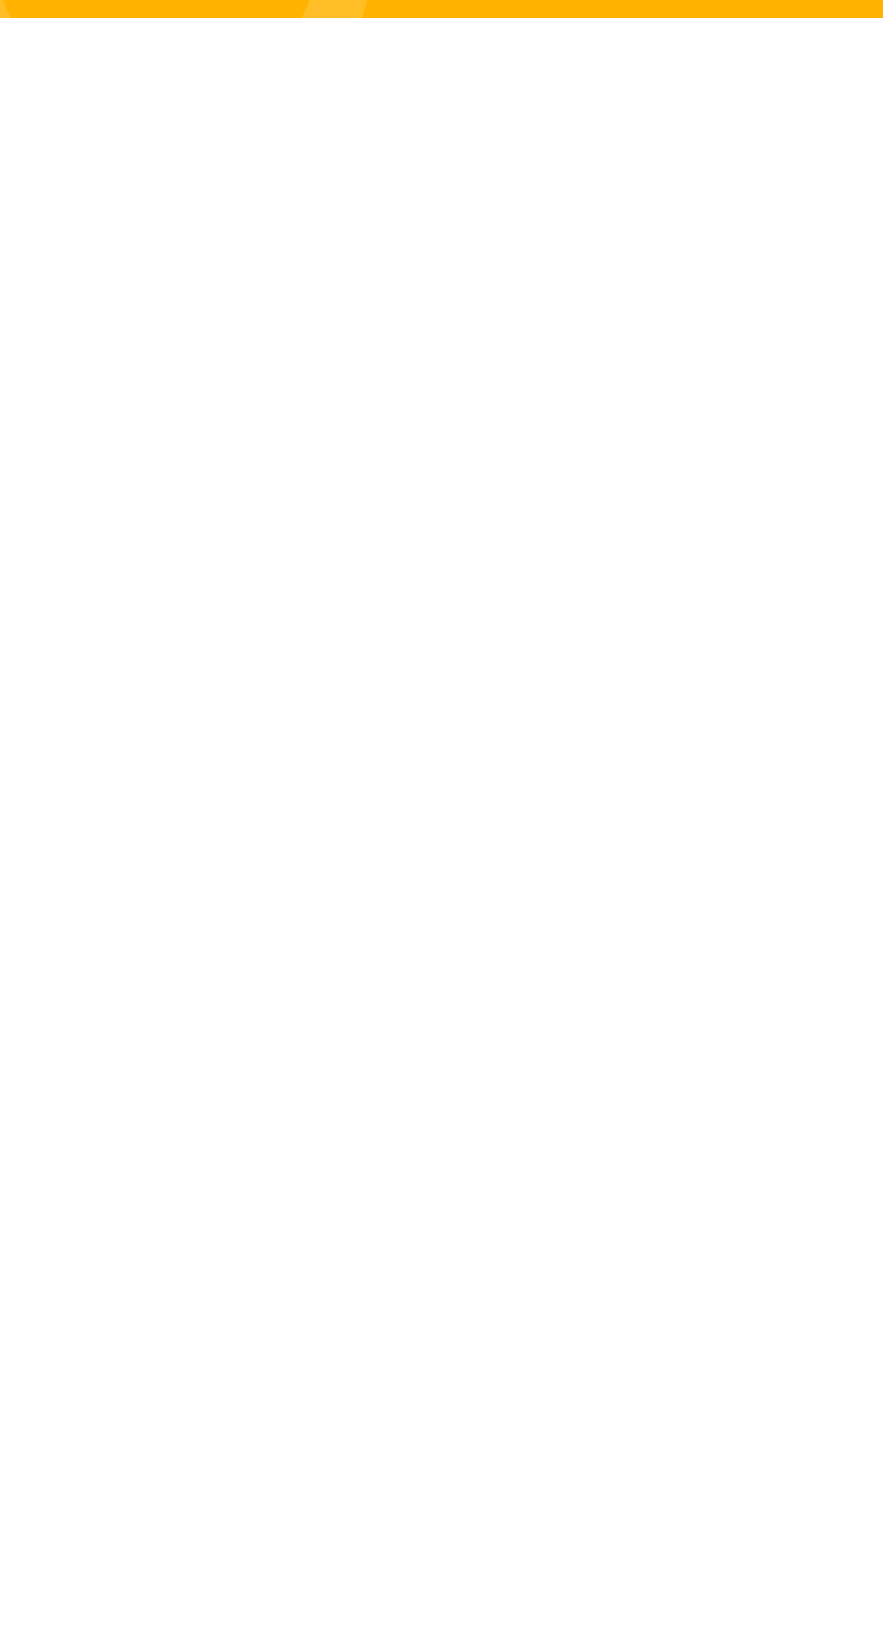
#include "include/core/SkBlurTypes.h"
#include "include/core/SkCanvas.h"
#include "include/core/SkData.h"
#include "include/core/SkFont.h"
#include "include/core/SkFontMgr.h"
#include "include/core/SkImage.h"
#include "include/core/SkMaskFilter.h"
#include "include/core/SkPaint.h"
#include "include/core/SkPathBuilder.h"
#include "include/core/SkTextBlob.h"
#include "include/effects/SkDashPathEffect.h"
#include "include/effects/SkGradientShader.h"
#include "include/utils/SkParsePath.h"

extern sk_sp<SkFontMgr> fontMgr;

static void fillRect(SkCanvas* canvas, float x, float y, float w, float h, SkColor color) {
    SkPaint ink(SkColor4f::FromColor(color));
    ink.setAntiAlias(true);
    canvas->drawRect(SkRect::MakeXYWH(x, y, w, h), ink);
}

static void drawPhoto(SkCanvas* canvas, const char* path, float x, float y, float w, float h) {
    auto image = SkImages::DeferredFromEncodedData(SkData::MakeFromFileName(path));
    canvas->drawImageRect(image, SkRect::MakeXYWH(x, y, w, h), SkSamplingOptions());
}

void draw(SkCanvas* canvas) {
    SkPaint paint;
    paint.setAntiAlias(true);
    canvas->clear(0xFFFFFFFF);
    fillRect(canvas, 0, 0, 883, 18, 0xFFFFB300);
    drawPhoto(canvas, "assets/img1.png", 0, 0, 367, 18);
}
